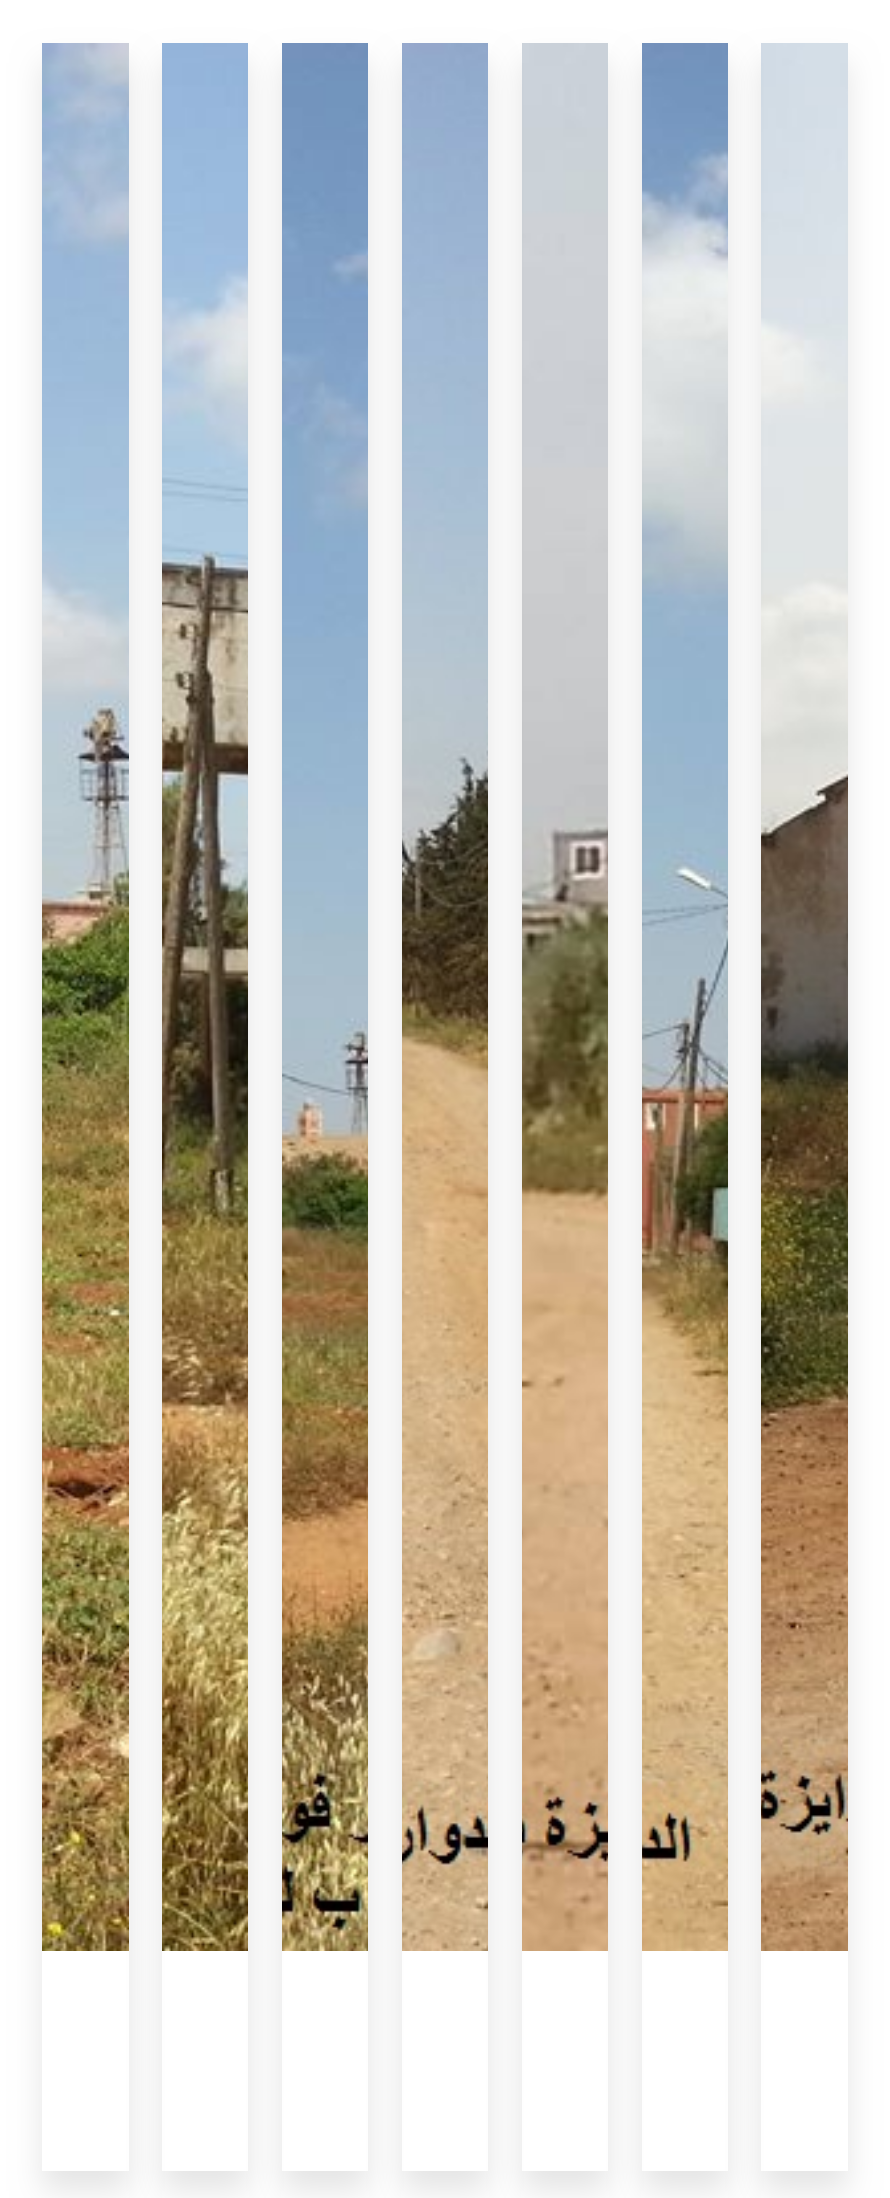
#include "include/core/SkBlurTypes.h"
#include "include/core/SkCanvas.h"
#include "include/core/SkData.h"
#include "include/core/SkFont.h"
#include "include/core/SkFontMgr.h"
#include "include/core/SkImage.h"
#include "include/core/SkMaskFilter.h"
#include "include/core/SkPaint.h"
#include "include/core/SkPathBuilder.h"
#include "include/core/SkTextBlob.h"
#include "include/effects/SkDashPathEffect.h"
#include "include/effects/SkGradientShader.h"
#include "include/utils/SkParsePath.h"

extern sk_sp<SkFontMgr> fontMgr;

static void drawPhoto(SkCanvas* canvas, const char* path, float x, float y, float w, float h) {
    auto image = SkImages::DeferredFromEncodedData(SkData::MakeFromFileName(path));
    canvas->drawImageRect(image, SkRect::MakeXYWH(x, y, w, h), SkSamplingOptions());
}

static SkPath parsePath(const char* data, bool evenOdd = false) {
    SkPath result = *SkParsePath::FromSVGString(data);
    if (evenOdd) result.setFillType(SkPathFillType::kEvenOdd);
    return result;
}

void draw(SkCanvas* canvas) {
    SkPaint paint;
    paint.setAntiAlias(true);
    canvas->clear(0xFFFFFFFF);
    canvas->save();
    canvas->clipPath(parsePath("M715 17H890V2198H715ZM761 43H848V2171H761Z", true), true);
    paint.setColor(0x1A000000);
    paint.setMaskFilter(SkMaskFilter::MakeBlur(kNormal_SkBlurStyle, 15));
    canvas->drawRect(SkRect::MakeXYWH(761, 63, 87, 2128), paint);
    paint.setMaskFilter(nullptr);
    canvas->restore();
    drawPhoto(canvas, "assets/img7.png", 761, 43, 87, 1908);
    canvas->save();
    canvas->clipPath(parsePath("M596 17H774V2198H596ZM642 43H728V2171H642Z", true), true);
    paint.setMaskFilter(SkMaskFilter::MakeBlur(kNormal_SkBlurStyle, 15));
    canvas->drawRect(SkRect::MakeXYWH(642, 63, 86, 2128), paint);
    paint.setMaskFilter(nullptr);
    canvas->restore();
    drawPhoto(canvas, "assets/img6.png", 642, 43, 86, 1908);
    canvas->save();
    canvas->clipPath(parsePath("M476 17H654V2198H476ZM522 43H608V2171H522Z", true), true);
    paint.setMaskFilter(SkMaskFilter::MakeBlur(kNormal_SkBlurStyle, 15));
    canvas->drawRect(SkRect::MakeXYWH(522, 63, 86, 2128), paint);
    paint.setMaskFilter(nullptr);
    canvas->restore();
    drawPhoto(canvas, "assets/img5.png", 522, 43, 86, 1908);
    canvas->save();
    canvas->clipPath(parsePath("M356 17H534V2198H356ZM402 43H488V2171H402Z", true), true);
    paint.setMaskFilter(SkMaskFilter::MakeBlur(kNormal_SkBlurStyle, 15));
    canvas->drawRect(SkRect::MakeXYWH(402, 63, 86, 2128), paint);
    paint.setMaskFilter(nullptr);
    canvas->restore();
    drawPhoto(canvas, "assets/img4.png", 402, 43, 86, 1908);
    canvas->save();
    canvas->clipPath(parsePath("M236 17H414V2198H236ZM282 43H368V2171H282Z", true), true);
    paint.setMaskFilter(SkMaskFilter::MakeBlur(kNormal_SkBlurStyle, 15));
    canvas->drawRect(SkRect::MakeXYWH(282, 63, 86, 2128), paint);
    paint.setMaskFilter(nullptr);
    canvas->restore();
    drawPhoto(canvas, "assets/img3.png", 282, 43, 86, 1908);
    canvas->save();
    canvas->clipPath(parsePath("M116 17H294V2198H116ZM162 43H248V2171H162Z", true), true);
    paint.setMaskFilter(SkMaskFilter::MakeBlur(kNormal_SkBlurStyle, 15));
    canvas->drawRect(SkRect::MakeXYWH(162, 63, 86, 2128), paint);
    paint.setMaskFilter(nullptr);
    canvas->restore();
    drawPhoto(canvas, "assets/img2.png", 162, 43, 86, 1908);
    canvas->save();
    canvas->clipPath(parsePath("M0 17H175V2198H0ZM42 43H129V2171H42Z", true), true);
    paint.setMaskFilter(SkMaskFilter::MakeBlur(kNormal_SkBlurStyle, 15));
    canvas->drawRect(SkRect::MakeXYWH(42, 63, 87, 2128), paint);
    paint.setMaskFilter(nullptr);
    canvas->restore();
    drawPhoto(canvas, "assets/img1.png", 42, 43, 87, 1908);
}
